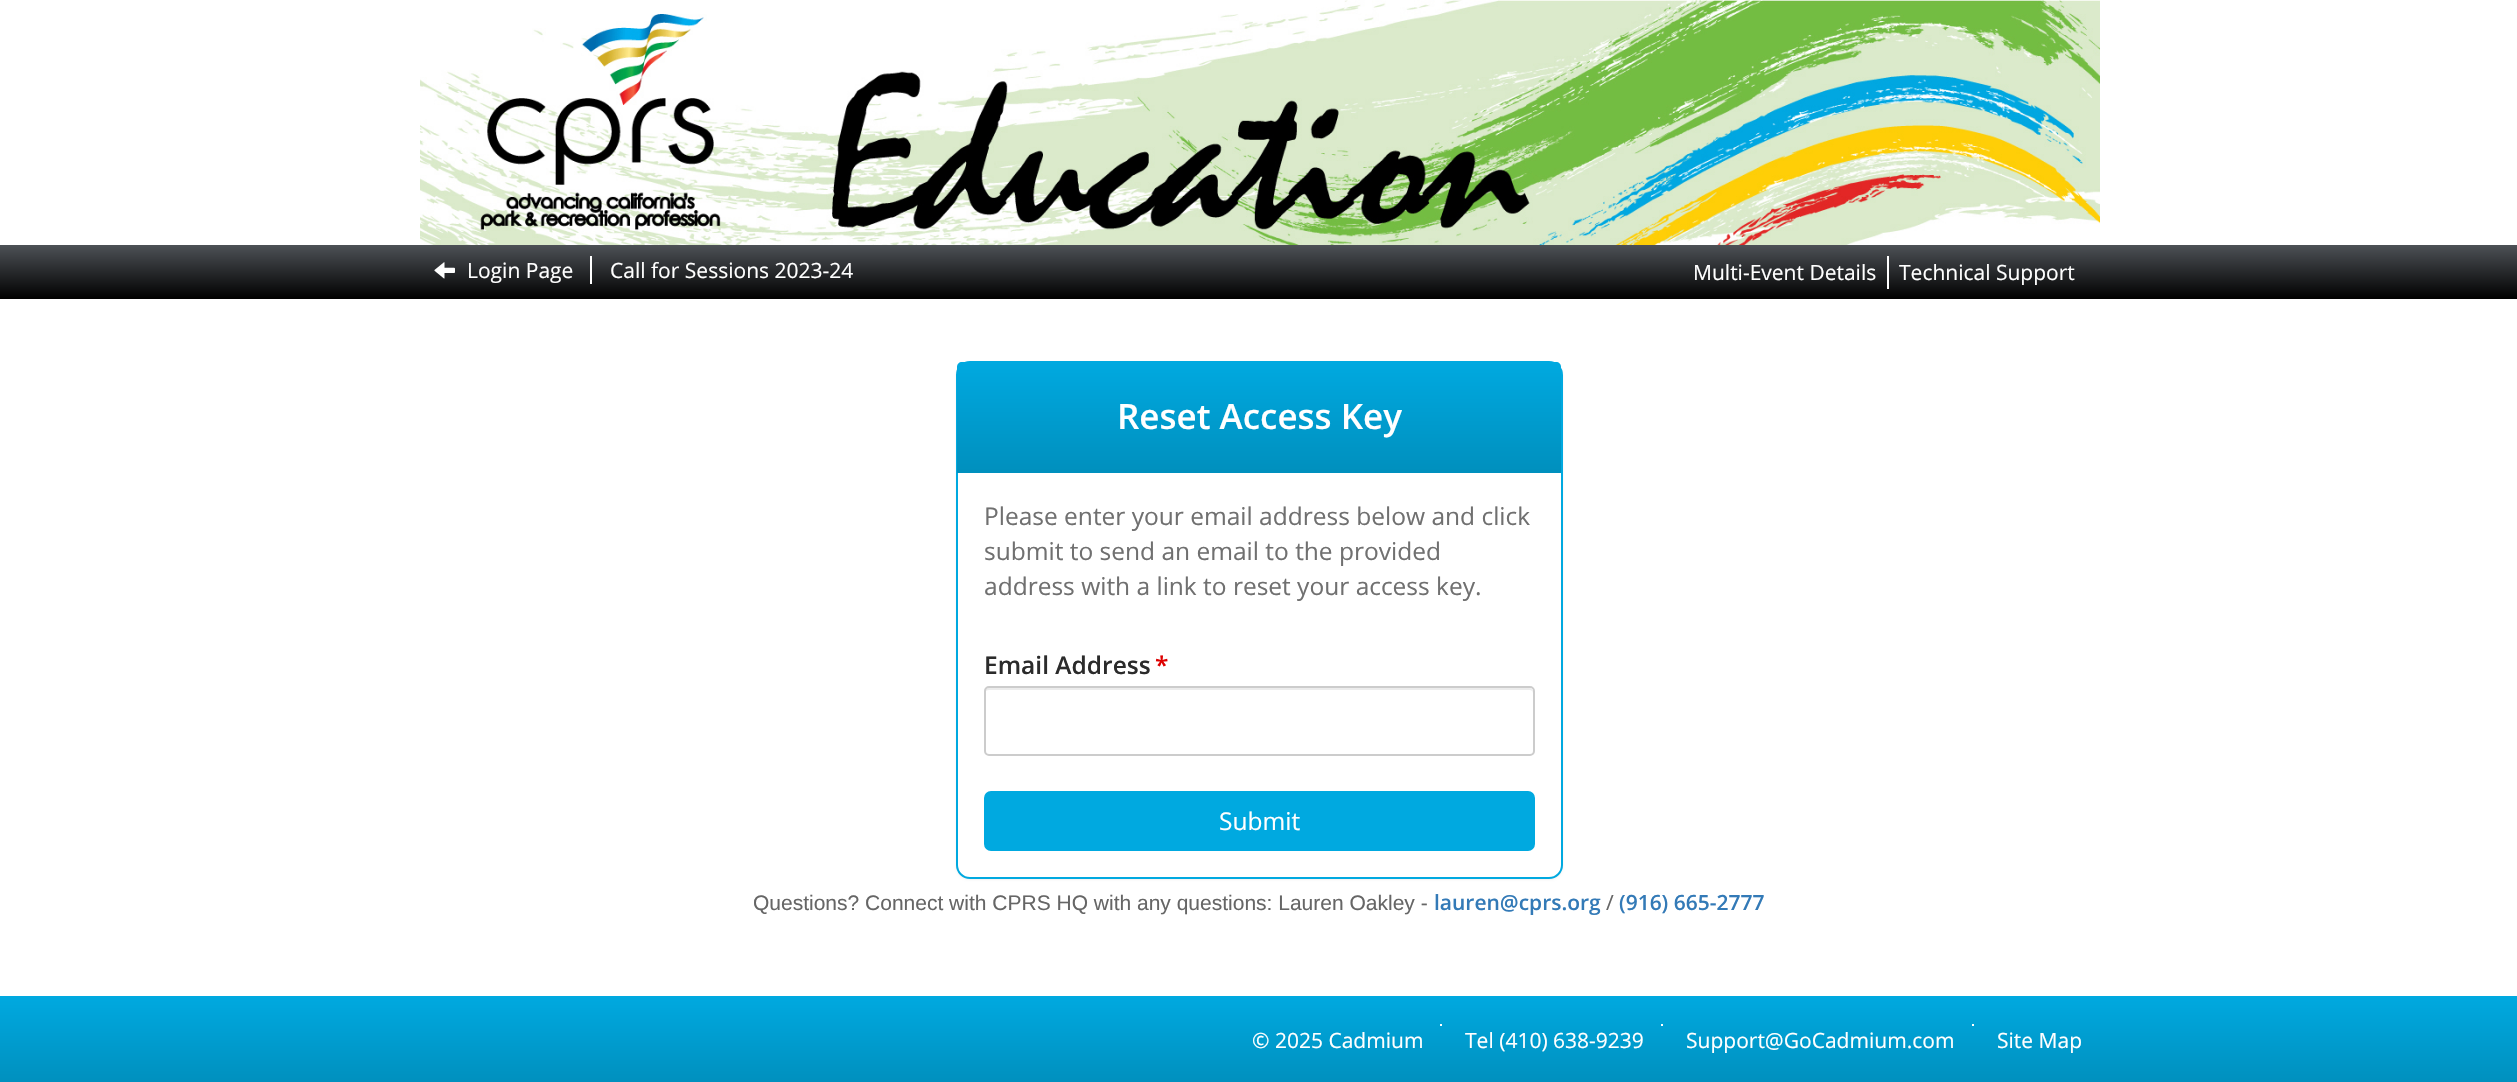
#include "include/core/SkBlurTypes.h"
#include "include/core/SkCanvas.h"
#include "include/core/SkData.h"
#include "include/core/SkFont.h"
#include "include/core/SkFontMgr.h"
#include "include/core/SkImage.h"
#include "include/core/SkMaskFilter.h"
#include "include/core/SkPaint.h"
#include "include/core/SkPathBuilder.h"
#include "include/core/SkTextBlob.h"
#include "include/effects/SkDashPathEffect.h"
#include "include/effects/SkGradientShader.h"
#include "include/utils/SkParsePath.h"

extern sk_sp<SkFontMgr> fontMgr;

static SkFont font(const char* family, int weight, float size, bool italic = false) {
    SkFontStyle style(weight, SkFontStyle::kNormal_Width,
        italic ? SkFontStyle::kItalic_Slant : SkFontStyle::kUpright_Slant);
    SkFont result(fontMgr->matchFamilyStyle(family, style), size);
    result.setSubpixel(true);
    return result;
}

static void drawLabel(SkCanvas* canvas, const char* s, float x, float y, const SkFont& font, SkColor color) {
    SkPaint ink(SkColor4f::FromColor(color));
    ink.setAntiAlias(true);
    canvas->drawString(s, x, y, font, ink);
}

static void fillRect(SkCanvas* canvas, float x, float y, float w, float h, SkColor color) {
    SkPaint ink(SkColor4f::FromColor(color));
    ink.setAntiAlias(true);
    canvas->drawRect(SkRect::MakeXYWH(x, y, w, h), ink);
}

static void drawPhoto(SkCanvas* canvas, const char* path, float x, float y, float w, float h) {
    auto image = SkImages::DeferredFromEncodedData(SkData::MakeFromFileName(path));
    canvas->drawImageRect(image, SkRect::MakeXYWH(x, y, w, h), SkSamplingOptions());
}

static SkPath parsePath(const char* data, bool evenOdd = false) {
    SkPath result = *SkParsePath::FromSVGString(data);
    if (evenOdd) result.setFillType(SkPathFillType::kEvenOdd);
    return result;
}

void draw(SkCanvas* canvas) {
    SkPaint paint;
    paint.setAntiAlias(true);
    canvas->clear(0xFFFFFFFF);
    drawPhoto(canvas, "assets/img1.png", 420, 0, 1680, 245);
    {
        const SkColor colors[] = {0xFF4D5156, 0xFF000000};
        const float stops[] = {0, 1};
        const SkPoint ends[] = {{1259, 245}, {1259, 299}};
        paint.setShader(SkGradientShader::MakeLinear(ends, colors, stops, 2, SkTileMode::kClamp));
        paint.setAlpha(255);
    }
    canvas->drawRect(SkRect::MakeXYWH(0, 245, 2517, 54), paint);
    fillRect(canvas, 590, 256, 2, 28, 0xFFFFFFFF);
    drawPhoto(canvas, "assets/img2.png", 434, 262, 21, 17);
    SkFont font1 = font("Open Sans", 400, 21);
    drawLabel(canvas, "Login Page", 467, 278, font1, 0xFFFFFFFF);
    drawLabel(canvas, "Call for Sessions 2023-24", 610, 278, font1, 0xFFFFFFFF);
    fillRect(canvas, 1887, 256, 2, 33, 0xFFFFFFFF);
    drawLabel(canvas, "Multi-Event Details", 1693, 280, font1, 0xFFFFFFFF);
    drawLabel(canvas, "Technical Support", 1899, 280, font1, 0xFFFFFFFF);
    paint.setShader(nullptr);
    paint.setColor(0x0D000000);
    paint.setMaskFilter(SkMaskFilter::MakeBlur(kNormal_SkBlurStyle, 1));
    canvas->drawRoundRect(SkRect::MakeXYWH(956, 362, 607, 518), 14, 14, paint);
    paint.setMaskFilter(nullptr);
    paint.setColor(0xFFFFFFFF);
    canvas->drawRoundRect(SkRect::MakeXYWH(957, 362, 605, 516), 13, 13, paint);
    paint.setStroke(true);
    paint.setStrokeWidth(2);
    paint.setColor(0xFF00A9E0);
    canvas->drawRoundRect(SkRect::MakeXYWH(957, 362, 605, 516), 13, 13, paint);
    paint.setStroke(false);
    {
        const SkColor colors[] = {0xFF00A9E0, 0xFF0090BE};
        const float stops[] = {0, 1};
        const SkPoint ends[] = {{1259, 362}, {1259, 471}};
        paint.setShader(SkGradientShader::MakeLinear(ends, colors, stops, 2, SkTileMode::kClamp));
        paint.setAlpha(255);
    }
    canvas->drawPath(parsePath("M962 362H1556C1559 362 1561 364 1561 367V471H957V367C957 364 959 362 962 362Z"), paint);
    fillRect(canvas, 957, 471, 604, 2, 0xFF0090BE);
    SkFont font2 = font("Open Sans", 600, 35);
    drawLabel(canvas, "Reset Access Key", 1117, 429, font2, 0xFFFFFFFF);
    SkFont font3 = font("Open Sans", 400, 24.5f);
    drawLabel(canvas, "Please enter your email address below and click", 984, 525, font3, 0xFF707070);
    drawLabel(canvas, "submit to send an email to the provided", 984, 560, font3, 0xFF707070);
    drawLabel(canvas, "address with a link to reset your access key.", 984, 595, font3, 0xFF707070);
    SkFont font4 = font("Open Sans", 600, 24.5f);
    drawLabel(canvas, "Email Address", 984, 674, font4, 0xFF2B2B2B);
    drawLabel(canvas, "*", 1155, 674, font4, 0xFFDD0000);
    paint.setShader(nullptr);
    paint.setColor(0xFFECECEC);
    canvas->drawPath(parsePath("M989 690H1530C1531 690 1533 691 1533 693V692C1533 690 1531 688 1529 688H989C987 688 985 690 985 692V693C985 691 987 690 989 690Z"), paint);
    paint.setStroke(true);
    paint.setColor(0xFFCCCCCC);
    canvas->drawRoundRect(SkRect::MakeXYWH(985, 687, 549, 68), 4, 4, paint);
    paint.setStroke(false);
    paint.setColor(0xFF00A9E0);
    canvas->drawRoundRect(SkRect::MakeXYWH(985, 792, 549, 58), 6, 6, paint);
    paint.setStroke(true);
    canvas->drawRoundRect(SkRect::MakeXYWH(985, 792, 549, 58), 6, 6, paint);
    drawLabel(canvas, "Submit", 1219, 830, font3, 0xFFFFFFFF);
    SkFont font5 = font("Liberation Sans", 400, 21);
    drawLabel(canvas, "Questions? Connect with CPRS HQ with any questions: Lauren Oakley -", 753, 910, font5, 0xFF666666);
    SkFont font6 = font("Open Sans", 600, 21);
    drawLabel(canvas, "lauren@cprs.org", 1434, 910, font6, 0xFF337AB7);
    drawLabel(canvas, "/", 1606, 910, font1, 0xFF666666);
    drawLabel(canvas, "(916) 665-2777", 1619, 910, font6, 0xFF337AB7);
    paint.setStroke(false);
    {
        const SkColor colors[] = {0xFF00A9E0, 0xFF0090BE};
        const float stops[] = {0, 1};
        const SkPoint ends[] = {{1259, 996}, {1259, 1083}};
        paint.setShader(SkGradientShader::MakeLinear(ends, colors, stops, 2, SkTileMode::kClamp));
        paint.setAlpha(255);
    }
    canvas->drawRect(SkRect::MakeXYWH(0, 996, 2517, 86), paint);
    drawLabel(canvas, "© 2025 Cadmium", 1252, 1048, font1, 0xFFFFFFFF);
    fillRect(canvas, 1440, 1024, 2, 2, 0xFFFFFFFF);
    drawLabel(canvas, "Tel (410) 638-9239", 1465, 1048, font1, 0xFFFFFFFF);
    fillRect(canvas, 1661, 1024, 2, 2, 0xFFFFFFFF);
    drawLabel(canvas, "Support@GoCadmium.com", 1686, 1048, font1, 0xFFFFFFFF);
    fillRect(canvas, 1972, 1024, 2, 2, 0xFFFFFFFF);
    drawLabel(canvas, "Site Map", 1997, 1048, font1, 0xFFFFFFFF);
}
